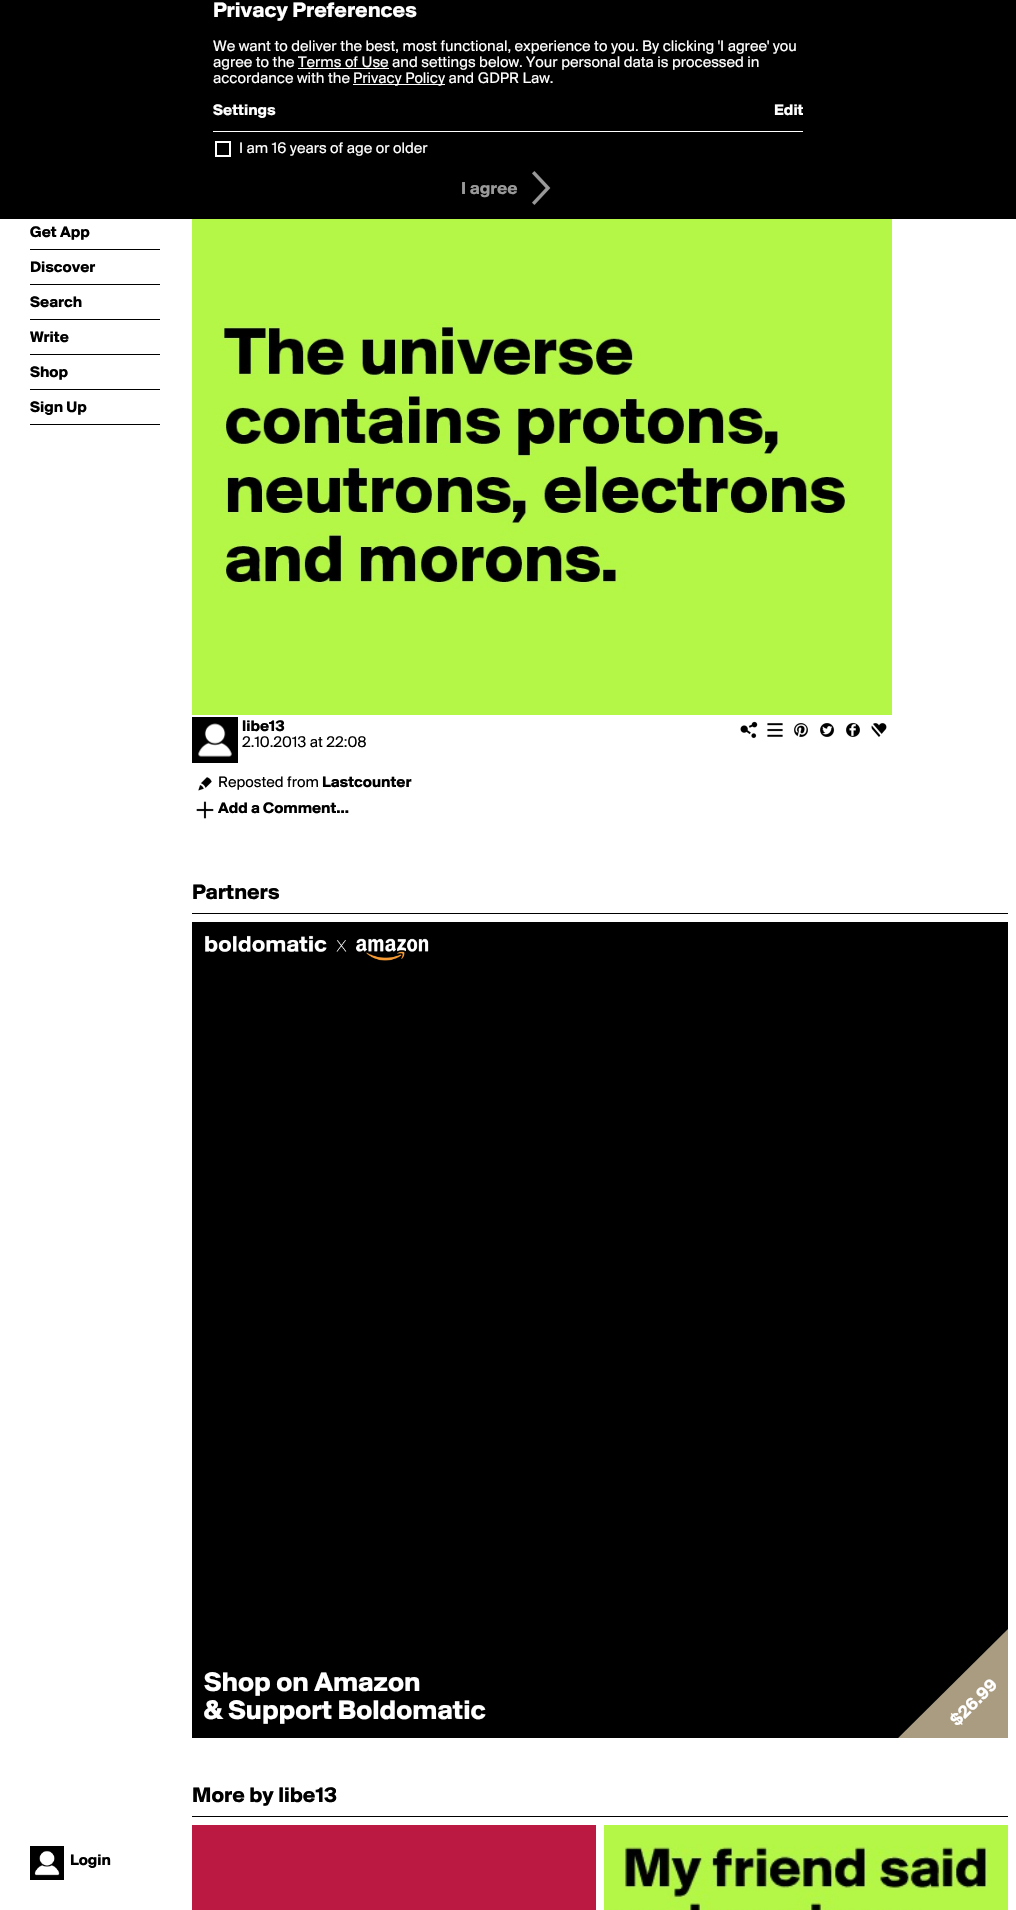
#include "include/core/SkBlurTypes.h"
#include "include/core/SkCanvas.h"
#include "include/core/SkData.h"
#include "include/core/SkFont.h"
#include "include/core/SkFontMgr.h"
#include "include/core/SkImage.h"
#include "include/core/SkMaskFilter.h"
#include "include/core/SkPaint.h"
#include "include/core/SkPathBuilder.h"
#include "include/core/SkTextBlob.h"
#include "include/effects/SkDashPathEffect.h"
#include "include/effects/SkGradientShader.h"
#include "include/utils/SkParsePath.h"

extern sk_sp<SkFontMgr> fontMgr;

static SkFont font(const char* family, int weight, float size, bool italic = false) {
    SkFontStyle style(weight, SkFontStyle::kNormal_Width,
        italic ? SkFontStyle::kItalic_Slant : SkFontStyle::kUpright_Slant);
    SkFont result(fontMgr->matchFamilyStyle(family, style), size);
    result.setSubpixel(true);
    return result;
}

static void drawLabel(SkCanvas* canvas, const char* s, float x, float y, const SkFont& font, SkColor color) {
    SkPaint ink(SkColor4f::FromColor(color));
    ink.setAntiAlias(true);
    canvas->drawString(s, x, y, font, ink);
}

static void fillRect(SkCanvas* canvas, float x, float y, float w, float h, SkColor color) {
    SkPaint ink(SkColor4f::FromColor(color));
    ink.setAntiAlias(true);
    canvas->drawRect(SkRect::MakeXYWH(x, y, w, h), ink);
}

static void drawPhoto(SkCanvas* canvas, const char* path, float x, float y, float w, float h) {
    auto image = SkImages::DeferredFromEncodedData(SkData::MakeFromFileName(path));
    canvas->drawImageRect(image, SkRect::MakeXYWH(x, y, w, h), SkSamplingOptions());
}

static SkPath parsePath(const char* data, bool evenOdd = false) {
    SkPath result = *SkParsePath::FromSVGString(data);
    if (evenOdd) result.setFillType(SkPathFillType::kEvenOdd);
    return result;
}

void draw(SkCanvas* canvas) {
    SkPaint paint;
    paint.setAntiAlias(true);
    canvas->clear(0xFFFFFFFF);
    fillRect(canvas, 0, 0, 1016, 219, 0xFF000000);
    SkFont font1 = font("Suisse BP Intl", 700, 22);
    drawLabel(canvas, "Privacy Preferences", 213, 17, font1, 0xFFFFFFFF);
    SkFont font2 = font("Suisse BP Intl", 400, 16);
    drawLabel(canvas, "We want to deliver the best, most functional, experience to you. By clicking 'I agree' you", 213, 51, font2, 0xFFFFFFFF);
    drawLabel(canvas, "agree to the Terms of Use and settings below. Your personal data is processed in", 213, 67, font2, 0xFFFFFFFF);
    fillRect(canvas, 298, 68, 91, 1, 0xFFFFFFFF);
    drawLabel(canvas, "accordance with the", 213, 83, font2, 0xFFFFFFFF);
    fillRect(canvas, 353, 84, 92, 1, 0xFFFFFFFF);
    drawLabel(canvas, "Privacy Policy and GDPR Law.", 353, 83, font2, 0xFFFFFFFF);
    SkFont font3 = font("Suisse BP Intl", 700, 16);
    drawLabel(canvas, "Settings", 213, 115, font3, 0xFFFFFFFF);
    drawLabel(canvas, "Edit", 774, 115, font3, 0xFFFFFFFF);
    fillRect(canvas, 213, 131, 590, 1, 0xFFFFFFFF);
    paint.setStroke(true);
    paint.setStrokeWidth(2);
    paint.setColor(0xFFFFFFFF);
    canvas->drawRect(SkRect::MakeXYWH(216, 142, 14, 14), paint);
    drawLabel(canvas, "I am 16 years of age or older", 239, 153, font2, 0xFFFFFFFF);
    SkFont font4 = font("Suisse BP Intl", 700, 18);
    drawLabel(canvas, "I agree", 461, 194, font4, 0xFF999999);
    drawPhoto(canvas, "assets/img1.png", 532, 171, 19, 34);
    fillRect(canvas, 30, 249, 130, 1, 0xFF000000);
    drawLabel(canvas, "Get App", 30, 237, font3, 0xFF000000);
    fillRect(canvas, 30, 284, 130, 1, 0xFF000000);
    drawLabel(canvas, "Discover", 30, 272, font3, 0xFF000000);
    fillRect(canvas, 30, 319, 130, 1, 0xFF000000);
    drawLabel(canvas, "Search", 30, 307, font3, 0xFF000000);
    fillRect(canvas, 30, 354, 130, 1, 0xFF000000);
    drawLabel(canvas, "Write", 30, 342, font3, 0xFF000000);
    fillRect(canvas, 30, 389, 130, 1, 0xFF000000);
    drawLabel(canvas, "Shop", 30, 377, font3, 0xFF000000);
    fillRect(canvas, 30, 424, 130, 1, 0xFF000000);
    drawLabel(canvas, "Sign Up", 30, 412, font3, 0xFF000000);
    drawPhoto(canvas, "assets/img2.png", 30, 1846, 34, 34);
    drawLabel(canvas, "Login", 70, 1865, font3, 0xFF000000);
    drawPhoto(canvas, "assets/img3.png", 192, 219, 700, 496);
    drawPhoto(canvas, "assets/img4.png", 192, 717, 46, 46);
    drawLabel(canvas, "libe13", 242, 731, font3, 0xFF000000);
    drawLabel(canvas, "2.10.2013 at 22:08", 242, 747, font2, 0xFF000000);
    drawPhoto(canvas, "assets/img5.png", 740, 721, 18, 18);
    drawPhoto(canvas, "assets/img6.png", 767, 723, 16, 14);
    drawPhoto(canvas, "assets/img7.png", 794, 723, 14, 14);
    drawPhoto(canvas, "assets/img8.png", 820, 723, 15, 14);
    drawPhoto(canvas, "assets/img9.png", 846, 722, 14, 15);
    drawPhoto(canvas, "assets/img10.png", 871, 723, 16, 14);
    drawPhoto(canvas, "assets/img11.png", 198, 777, 14, 14);
    drawLabel(canvas, "Reposted from", 218, 787, font2, 0xFF000000);
    drawLabel(canvas, "Lastcounter", 322, 787, font3, 0xFF000000);
    drawPhoto(canvas, "assets/img12.png", 196, 801, 18, 18);
    drawLabel(canvas, "Add a Comment...", 218, 813, font3, 0xFF000000);
    fillRect(canvas, 192, 913, 816, 1, 0xFF000000);
    drawLabel(canvas, "Partners", 192, 899, font1, 0xFF000000);
    fillRect(canvas, 192, 922, 816, 816, 0xFF000000);
    drawPhoto(canvas, "assets/img13.png", 205, 935, 224, 26);
    SkFont font5 = font("Suisse BP Intl", 700, 28);
    drawLabel(canvas, "Shop on Amazon", 204, 1691, font5, 0xFFFFFFFF);
    drawLabel(canvas, "& Support Boldomatic", 204, 1719, font5, 0xFFFFFFFF);
    canvas->save();
    canvas->clipRect(SkRect::MakeXYWH(192, 922, 816, 816));
    paint.setStroke(false);
    paint.setColor(0xFFAA9C81);
    canvas->drawPath(parsePath("M884 1752L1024 1613L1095 1684L955 1823Z"), paint);
    canvas->restore();
    canvas->save();
    canvas->rotate(-45, 957, 1727);
    drawLabel(canvas, "$26.99", 957, 1727, font4, 0xFFFFFFFF);
    canvas->restore();
    fillRect(canvas, 192, 1816, 816, 1, 0xFF000000);
    drawLabel(canvas, "More by libe13", 192, 1802, font1, 0xFF000000);
    fillRect(canvas, 192, 1825, 404, 85, 0xFFBB1942);
    drawPhoto(canvas, "assets/img14.png", 604, 1825, 404, 85);
}
